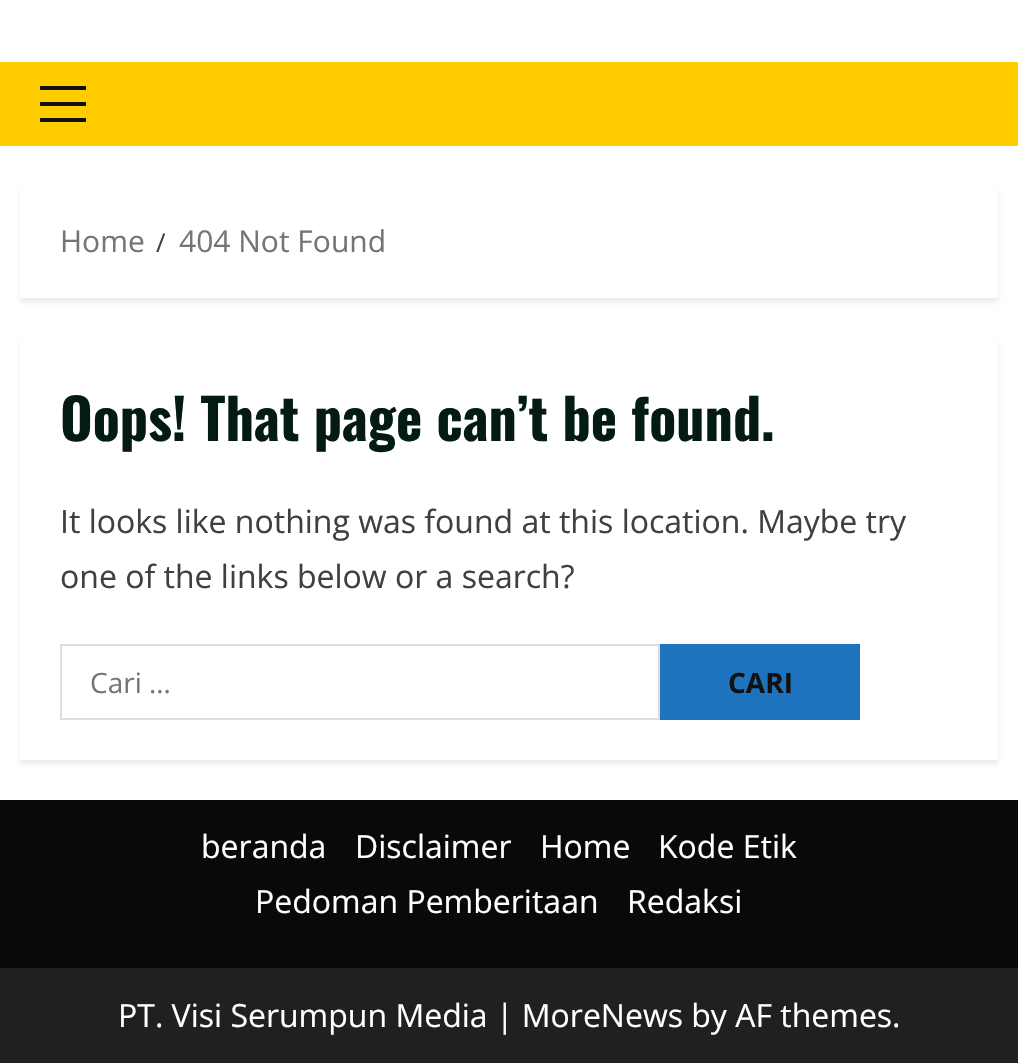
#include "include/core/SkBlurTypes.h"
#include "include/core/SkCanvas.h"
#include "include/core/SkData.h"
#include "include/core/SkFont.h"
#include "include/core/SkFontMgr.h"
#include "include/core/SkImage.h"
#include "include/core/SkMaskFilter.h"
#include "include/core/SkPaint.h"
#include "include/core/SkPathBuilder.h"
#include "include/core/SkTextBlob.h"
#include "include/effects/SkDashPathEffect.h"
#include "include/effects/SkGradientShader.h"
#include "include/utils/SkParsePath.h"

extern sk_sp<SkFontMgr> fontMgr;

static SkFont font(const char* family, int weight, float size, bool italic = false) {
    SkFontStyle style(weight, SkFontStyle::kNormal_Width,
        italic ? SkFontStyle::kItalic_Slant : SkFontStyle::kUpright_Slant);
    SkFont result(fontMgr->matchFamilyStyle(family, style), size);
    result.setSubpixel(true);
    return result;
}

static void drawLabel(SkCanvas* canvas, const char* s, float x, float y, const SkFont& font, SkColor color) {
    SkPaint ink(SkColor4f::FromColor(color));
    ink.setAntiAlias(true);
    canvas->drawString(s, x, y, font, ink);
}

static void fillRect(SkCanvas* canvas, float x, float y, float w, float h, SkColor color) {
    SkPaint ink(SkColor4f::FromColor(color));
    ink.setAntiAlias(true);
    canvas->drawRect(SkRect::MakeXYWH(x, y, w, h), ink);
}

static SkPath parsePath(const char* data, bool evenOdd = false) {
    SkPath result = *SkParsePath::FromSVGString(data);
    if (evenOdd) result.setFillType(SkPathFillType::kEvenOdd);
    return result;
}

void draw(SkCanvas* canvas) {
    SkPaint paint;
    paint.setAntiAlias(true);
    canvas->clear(0xFFFFFFFF);
    fillRect(canvas, 0, 62, 1018, 84, 0xFFFFCC00);
    fillRect(canvas, 40, 102, 46, 4, 0xFF111111);
    fillRect(canvas, 40, 86, 46, 4, 0xFF111111);
    fillRect(canvas, 40, 118, 46, 4, 0xFF111111);
    canvas->save();
    canvas->clipPath(parsePath("M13 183H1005V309H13ZM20 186H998V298H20Z", true), true);
    paint.setColor(0x14000000);
    paint.setMaskFilter(SkMaskFilter::MakeBlur(kNormal_SkBlurStyle, 2));
    canvas->drawRect(SkRect::MakeXYWH(20, 190, 978, 112), paint);
    paint.setMaskFilter(nullptr);
    canvas->restore();
    SkFont font1 = font("Open Sans", 400, 30);
    drawLabel(canvas, "Home", 60, 252, font1, 0xFF757575);
    SkFont font2 = font("Open Sans", 400, 26);
    drawLabel(canvas, "/", 156, 252, font2, 0xFF404040);
    drawLabel(canvas, "404 Not Found", 179, 252, font1, 0xFF757575);
    canvas->save();
    canvas->clipPath(parsePath("M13 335H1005V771H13ZM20 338H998V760H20Z", true), true);
    paint.setMaskFilter(SkMaskFilter::MakeBlur(kNormal_SkBlurStyle, 2));
    canvas->drawRect(SkRect::MakeXYWH(20, 342, 978, 422), paint);
    paint.setMaskFilter(nullptr);
    canvas->restore();
    SkFont font3 = font("Oswald", 700, 56);
    drawLabel(canvas, "Oops! That page can’t be found.", 60, 441, font3, 0xFF031B11);
    SkFont font4 = font("Open Sans", 400, 32);
    drawLabel(canvas, "It looks like nothing was found at this location. Maybe try", 60, 533, font4, 0xFF404040);
    drawLabel(canvas, "one of the links below or a search?", 60, 588, font4, 0xFF404040);
    paint.setStroke(true);
    paint.setStrokeWidth(2);
    paint.setColor(0xFFDCDCDC);
    canvas->drawRect(SkRect::MakeXYWH(61, 645, 598, 74), paint);
    SkFont font5 = font("Open Sans", 400, 28);
    drawLabel(canvas, "Cari …", 90, 693, font5, 0xFF757575);
    fillRect(canvas, 660, 644, 200, 76, 0xFF1E73BE);
    SkFont font6 = font("Open Sans", 700, 28);
    drawLabel(canvas, "CARI", 728, 693, font6, 0xFF111111);
    fillRect(canvas, 0, 800, 1018, 168, 0xFF090909);
    drawLabel(canvas, "beranda", 201, 858, font4, 0xFFFFFFFF);
    drawLabel(canvas, "Disclaimer", 355, 858, font4, 0xFFFFFFFF);
    drawLabel(canvas, "Home", 540, 858, font4, 0xFFFFFFFF);
    drawLabel(canvas, "Kode Etik", 658, 858, font4, 0xFFFFFFFF);
    drawLabel(canvas, "Pedoman Pemberitaan", 255, 913, font4, 0xFFFFFFFF);
    drawLabel(canvas, "Redaksi", 627, 913, font4, 0xFFFFFFFF);
    fillRect(canvas, 0, 968, 1018, 95, 0xFF202020);
    drawLabel(canvas, "PT. Visi Serumpun Media | MoreNews by AF themes.", 118, 1027, font4, 0xFFFFFFFF);
}
